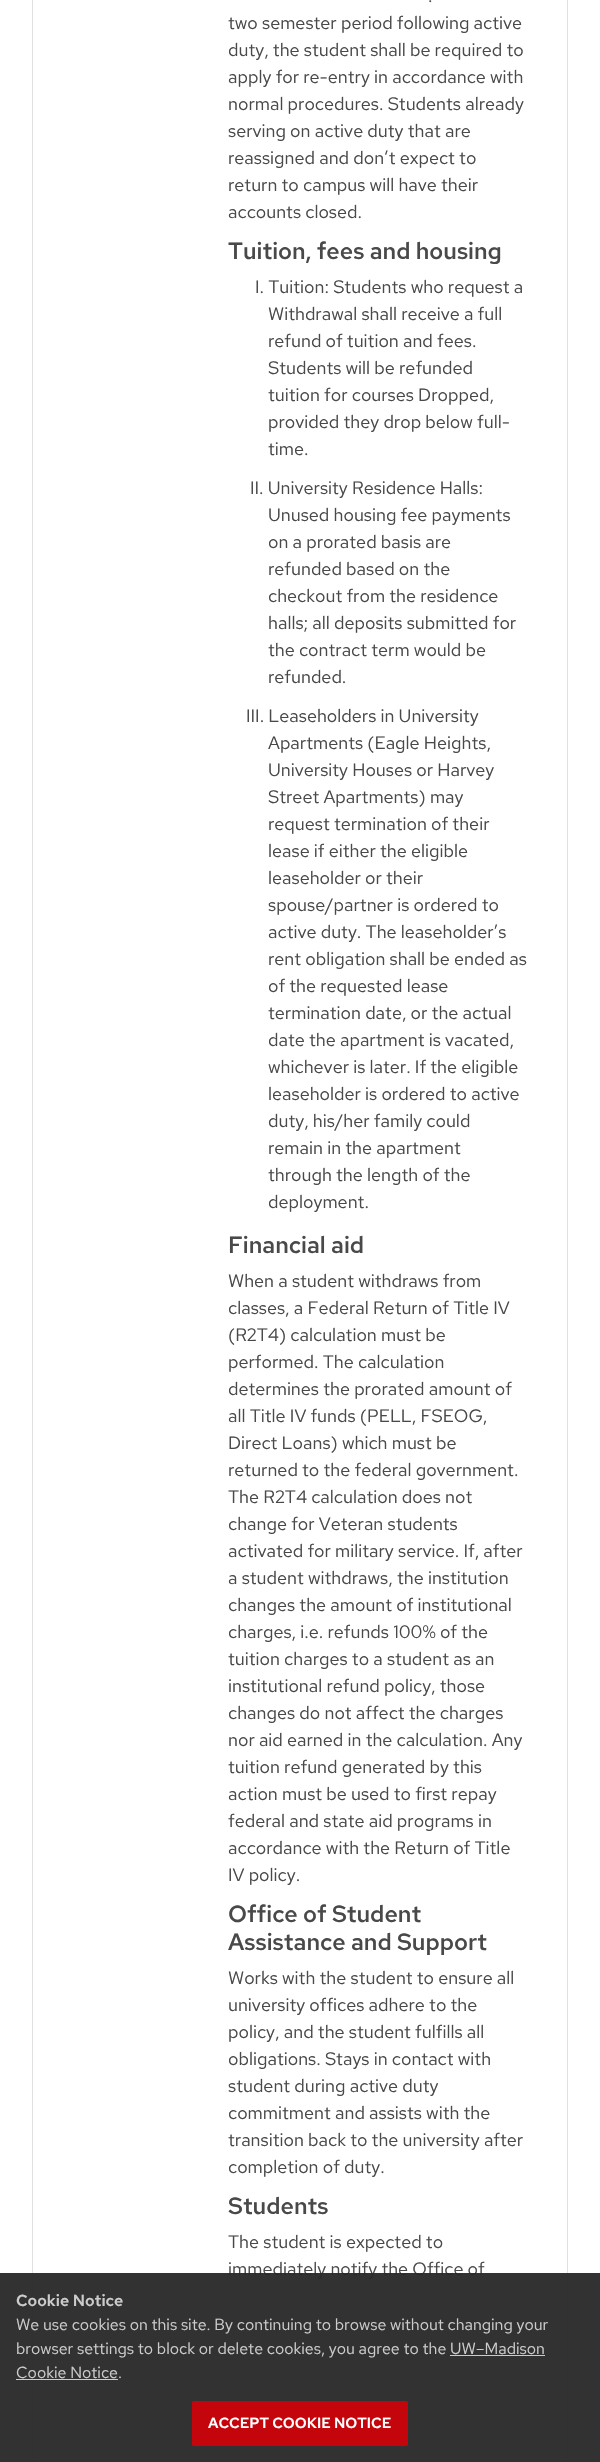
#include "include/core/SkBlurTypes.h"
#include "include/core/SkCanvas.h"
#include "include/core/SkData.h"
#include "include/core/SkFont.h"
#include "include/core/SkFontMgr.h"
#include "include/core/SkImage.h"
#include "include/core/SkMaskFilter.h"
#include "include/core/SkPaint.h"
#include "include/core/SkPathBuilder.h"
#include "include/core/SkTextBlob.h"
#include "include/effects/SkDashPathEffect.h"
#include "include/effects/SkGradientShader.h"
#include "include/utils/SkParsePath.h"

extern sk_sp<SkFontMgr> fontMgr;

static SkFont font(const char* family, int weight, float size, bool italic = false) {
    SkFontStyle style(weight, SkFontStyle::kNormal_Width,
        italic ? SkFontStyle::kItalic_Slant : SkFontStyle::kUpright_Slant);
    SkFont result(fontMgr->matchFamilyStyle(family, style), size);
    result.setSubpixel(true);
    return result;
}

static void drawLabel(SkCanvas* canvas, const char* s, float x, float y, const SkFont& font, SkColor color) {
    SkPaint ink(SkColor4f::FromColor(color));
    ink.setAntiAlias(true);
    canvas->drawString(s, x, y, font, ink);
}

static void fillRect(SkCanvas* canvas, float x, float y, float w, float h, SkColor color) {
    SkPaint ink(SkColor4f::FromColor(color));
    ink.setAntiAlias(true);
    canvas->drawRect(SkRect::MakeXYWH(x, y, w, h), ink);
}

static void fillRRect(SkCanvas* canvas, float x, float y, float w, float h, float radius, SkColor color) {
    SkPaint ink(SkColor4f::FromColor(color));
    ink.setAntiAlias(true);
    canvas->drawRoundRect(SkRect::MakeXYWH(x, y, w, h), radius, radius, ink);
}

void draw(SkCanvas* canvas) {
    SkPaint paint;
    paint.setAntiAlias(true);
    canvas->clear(0xFFFFFFFF);
    paint.setStroke(true);
    paint.setStrokeWidth(1);
    paint.setColor(0xFFE0E0E0);
    canvas->drawRect(SkRect::MakeXYWH(32.5f, -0.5f, 535, 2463), paint);
    SkFont font1 = font("Red Hat Text", 400, 18);
    drawLabel(canvas, ".", 428, 2, font1, 0xFF494949);
    drawLabel(canvas, "two semester period following active", 228, 29, font1, 0xFF494949);
    drawLabel(canvas, "duty, the student shall be required to", 228, 56, font1, 0xFF494949);
    drawLabel(canvas, "apply for re-entry in accordance with", 228, 83, font1, 0xFF494949);
    drawLabel(canvas, "normal procedures. Students already", 228, 110, font1, 0xFF494949);
    drawLabel(canvas, "serving on active duty that are", 228, 137, font1, 0xFF494949);
    drawLabel(canvas, "reassigned and don’t expect to", 228, 164, font1, 0xFF494949);
    drawLabel(canvas, "return to campus will have their", 228, 191, font1, 0xFF494949);
    drawLabel(canvas, "accounts closed.", 228, 218, font1, 0xFF494949);
    SkFont font2 = font("Red Hat Text", 600, 23.4f);
    drawLabel(canvas, "Tuition, fees and housing", 228, 259, font2, 0xFF494949);
    drawLabel(canvas, "I. Tuition: Students who request a", 255, 293, font1, 0xFF494949);
    drawLabel(canvas, "Withdrawal shall receive a full", 268, 320, font1, 0xFF494949);
    drawLabel(canvas, "refund of tuition and fees.", 268, 347, font1, 0xFF494949);
    drawLabel(canvas, "Students will be refunded", 268, 374, font1, 0xFF494949);
    drawLabel(canvas, "tuition for courses Dropped,", 268, 401, font1, 0xFF494949);
    drawLabel(canvas, "provided they drop below full-", 268, 428, font1, 0xFF494949);
    drawLabel(canvas, "time.", 268, 455, font1, 0xFF494949);
    drawLabel(canvas, "II. University Residence Halls:", 250, 494, font1, 0xFF494949);
    drawLabel(canvas, "Unused housing fee payments", 268, 521, font1, 0xFF494949);
    drawLabel(canvas, "on a prorated basis are", 268, 548, font1, 0xFF494949);
    drawLabel(canvas, "refunded based on the", 268, 575, font1, 0xFF494949);
    drawLabel(canvas, "checkout from the residence", 268, 602, font1, 0xFF494949);
    drawLabel(canvas, "halls; all deposits submitted for", 268, 629, font1, 0xFF494949);
    drawLabel(canvas, "the contract term would be", 268, 656, font1, 0xFF494949);
    drawLabel(canvas, "refunded.", 268, 683, font1, 0xFF494949);
    drawLabel(canvas, "III. Leaseholders in University", 246, 722, font1, 0xFF494949);
    drawLabel(canvas, "Apartments (Eagle Heights,", 268, 749, font1, 0xFF494949);
    drawLabel(canvas, "University Houses or Harvey", 268, 776, font1, 0xFF494949);
    drawLabel(canvas, "Street Apartments) may", 268, 803, font1, 0xFF494949);
    drawLabel(canvas, "request termination of their", 268, 830, font1, 0xFF494949);
    drawLabel(canvas, "lease if either the eligible", 268, 857, font1, 0xFF494949);
    drawLabel(canvas, "leaseholder or their", 268, 884, font1, 0xFF494949);
    drawLabel(canvas, "spouse/partner is ordered to", 268, 911, font1, 0xFF494949);
    drawLabel(canvas, "active duty. The leaseholder’s", 268, 938, font1, 0xFF494949);
    drawLabel(canvas, "rent obligation shall be ended as", 268, 965, font1, 0xFF494949);
    drawLabel(canvas, "of the requested lease", 268, 992, font1, 0xFF494949);
    drawLabel(canvas, "termination date, or the actual", 268, 1019, font1, 0xFF494949);
    drawLabel(canvas, "date the apartment is vacated,", 268, 1046, font1, 0xFF494949);
    drawLabel(canvas, "whichever is later. If the eligible", 268, 1073, font1, 0xFF494949);
    drawLabel(canvas, "leaseholder is ordered to active", 268, 1100, font1, 0xFF494949);
    drawLabel(canvas, "duty, his/her family could", 268, 1127, font1, 0xFF494949);
    drawLabel(canvas, "remain in the apartment", 268, 1154, font1, 0xFF494949);
    drawLabel(canvas, "through the length of the", 268, 1181, font1, 0xFF494949);
    drawLabel(canvas, "deployment.", 268, 1208, font1, 0xFF494949);
    drawLabel(canvas, "Financial aid", 228, 1253, font2, 0xFF494949);
    drawLabel(canvas, "When a student withdraws from", 228, 1287, font1, 0xFF494949);
    drawLabel(canvas, "classes, a Federal Return of Title IV", 228, 1314, font1, 0xFF494949);
    drawLabel(canvas, "(R2T4) calculation must be", 228, 1341, font1, 0xFF494949);
    drawLabel(canvas, "performed. The calculation", 228, 1368, font1, 0xFF494949);
    drawLabel(canvas, "determines the prorated amount of", 228, 1395, font1, 0xFF494949);
    drawLabel(canvas, "all Title IV funds (PELL, FSEOG,", 228, 1422, font1, 0xFF494949);
    drawLabel(canvas, "Direct Loans) which must be", 228, 1449, font1, 0xFF494949);
    drawLabel(canvas, "returned to the federal government.", 228, 1476, font1, 0xFF494949);
    drawLabel(canvas, "The R2T4 calculation does not", 228, 1503, font1, 0xFF494949);
    drawLabel(canvas, "change for Veteran students", 228, 1530, font1, 0xFF494949);
    drawLabel(canvas, "activated for military service. If, after", 228, 1557, font1, 0xFF494949);
    drawLabel(canvas, "a student withdraws, the institution", 228, 1584, font1, 0xFF494949);
    drawLabel(canvas, "changes the amount of institutional", 228, 1611, font1, 0xFF494949);
    drawLabel(canvas, "charges, i.e. refunds 100% of the", 228, 1638, font1, 0xFF494949);
    drawLabel(canvas, "tuition charges to a student as an", 228, 1665, font1, 0xFF494949);
    drawLabel(canvas, "institutional refund policy, those", 228, 1692, font1, 0xFF494949);
    drawLabel(canvas, "changes do not affect the charges", 228, 1719, font1, 0xFF494949);
    drawLabel(canvas, "nor aid earned in the calculation. Any", 228, 1746, font1, 0xFF494949);
    drawLabel(canvas, "tuition refund generated by this", 228, 1773, font1, 0xFF494949);
    drawLabel(canvas, "action must be used to first repay", 228, 1800, font1, 0xFF494949);
    drawLabel(canvas, "federal and state aid programs in", 228, 1827, font1, 0xFF494949);
    drawLabel(canvas, "accordance with the Return of Title", 228, 1854, font1, 0xFF494949);
    drawLabel(canvas, "IV policy.", 228, 1881, font1, 0xFF494949);
    drawLabel(canvas, "Office of Student", 228, 1922, font2, 0xFF494949);
    drawLabel(canvas, "Assistance and Support", 228, 1950, font2, 0xFF494949);
    drawLabel(canvas, "Works with the student to ensure all", 228, 1984, font1, 0xFF494949);
    drawLabel(canvas, "university offices adhere to the", 228, 2011, font1, 0xFF494949);
    drawLabel(canvas, "policy, and the student fulfills all", 228, 2038, font1, 0xFF494949);
    drawLabel(canvas, "obligations. Stays in contact with", 228, 2065, font1, 0xFF494949);
    drawLabel(canvas, "student during active duty", 228, 2092, font1, 0xFF494949);
    drawLabel(canvas, "commitment and assists with the", 228, 2119, font1, 0xFF494949);
    drawLabel(canvas, "transition back to the university after", 228, 2146, font1, 0xFF494949);
    drawLabel(canvas, "completion of duty.", 228, 2173, font1, 0xFF494949);
    drawLabel(canvas, "Students", 228, 2214, font2, 0xFF494949);
    drawLabel(canvas, "The student is expected to", 228, 2248, font1, 0xFF494949);
    drawLabel(canvas, "immediately notify the Office of", 228, 2275, font1, 0xFF494949);
    fillRect(canvas, 0, 2273, 600, 189, 0xF2282728);
    SkFont font3 = font("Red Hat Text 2", 600, 16);
    drawLabel(canvas, "Cookie Notice", 16, 2306, font3, 0xFFCCCCCC);
    SkFont font4 = font("Red Hat Text", 400, 16);
    drawLabel(canvas, "We use cookies on this site. By continuing to browse without changing your", 16, 2330, font4, 0xFFCCCCCC);
    drawLabel(canvas, "browser settings to block or delete cookies, you agree to the UW–Madison", 16, 2354, font4, 0xFFCCCCCC);
    drawLabel(canvas, "Cookie Notice.", 16, 2378, font4, 0xFFCCCCCC);
    fillRect(canvas, 450, 2355, 95, 1, 0xFFCCCCCC);
    fillRect(canvas, 16, 2379, 102, 1, 0xFFCCCCCC);
    fillRRect(canvas, 192, 2401, 216, 45, 2, 0xFFC5050C);
    SkFont font5 = font("Red Hat Text 2", 600, 14.75f);
    drawLabel(canvas, "ACCEPT COOKIE NOTICE", 208, 2428, font5, 0xFFFFFFFF);
}
